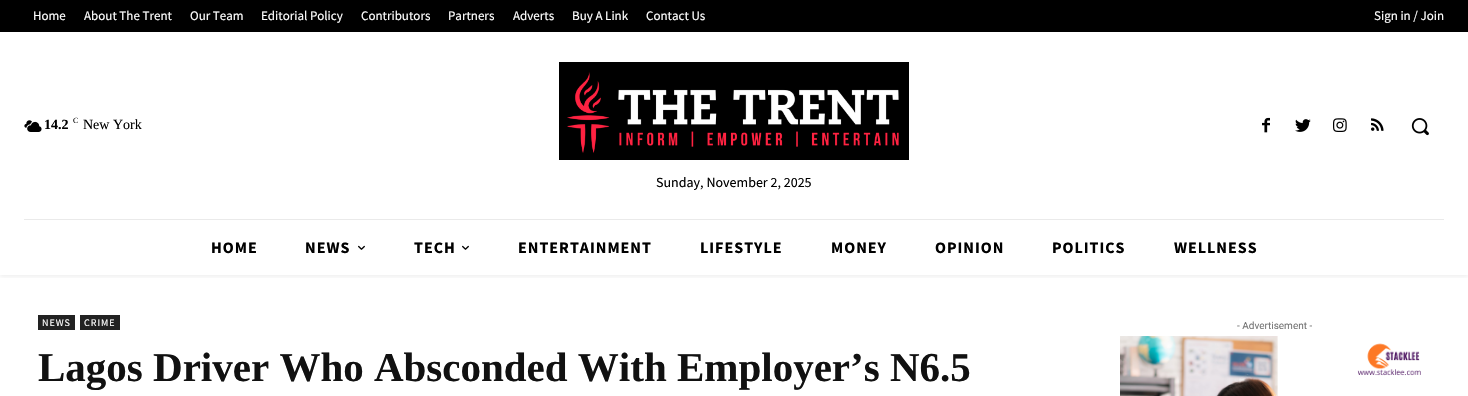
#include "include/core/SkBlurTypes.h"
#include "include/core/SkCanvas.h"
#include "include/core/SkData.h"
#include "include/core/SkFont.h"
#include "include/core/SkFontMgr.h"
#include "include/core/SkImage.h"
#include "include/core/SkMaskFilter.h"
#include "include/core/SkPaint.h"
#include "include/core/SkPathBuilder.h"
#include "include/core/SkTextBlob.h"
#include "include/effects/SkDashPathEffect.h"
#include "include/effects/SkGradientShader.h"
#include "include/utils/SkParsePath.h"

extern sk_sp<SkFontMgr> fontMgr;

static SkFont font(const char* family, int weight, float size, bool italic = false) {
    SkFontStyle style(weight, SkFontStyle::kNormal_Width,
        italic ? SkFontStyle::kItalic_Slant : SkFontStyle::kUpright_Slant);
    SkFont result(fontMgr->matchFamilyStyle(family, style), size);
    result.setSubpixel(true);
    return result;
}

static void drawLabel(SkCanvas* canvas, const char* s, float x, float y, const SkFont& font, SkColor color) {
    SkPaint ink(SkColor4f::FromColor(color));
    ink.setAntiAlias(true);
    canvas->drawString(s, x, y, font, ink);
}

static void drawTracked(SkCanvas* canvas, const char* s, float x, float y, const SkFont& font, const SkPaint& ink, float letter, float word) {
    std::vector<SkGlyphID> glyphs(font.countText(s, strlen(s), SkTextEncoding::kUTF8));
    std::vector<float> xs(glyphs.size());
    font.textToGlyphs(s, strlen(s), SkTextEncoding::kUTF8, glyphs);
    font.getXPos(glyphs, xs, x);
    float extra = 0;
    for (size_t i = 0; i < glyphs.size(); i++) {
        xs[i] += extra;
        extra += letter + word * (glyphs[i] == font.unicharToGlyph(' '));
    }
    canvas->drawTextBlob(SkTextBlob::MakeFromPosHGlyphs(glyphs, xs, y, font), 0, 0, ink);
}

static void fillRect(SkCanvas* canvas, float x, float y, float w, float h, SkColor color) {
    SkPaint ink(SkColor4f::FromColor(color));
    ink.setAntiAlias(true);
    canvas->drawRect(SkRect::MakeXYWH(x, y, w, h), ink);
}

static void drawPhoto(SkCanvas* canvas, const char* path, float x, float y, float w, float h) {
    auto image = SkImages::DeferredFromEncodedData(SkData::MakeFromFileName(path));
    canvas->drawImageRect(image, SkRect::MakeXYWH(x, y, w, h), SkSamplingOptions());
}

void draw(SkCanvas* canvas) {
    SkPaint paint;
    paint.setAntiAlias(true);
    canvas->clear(0xFFFFFFFF);
    fillRect(canvas, 0, 0, 1468, 32, 0xFF000000);
    SkFont font1 = font("Source Sans Pro", 400, 13);
    drawLabel(canvas, "Home", 33, 20, font1, 0xFFFFFFFF);
    drawLabel(canvas, "About The Trent", 84, 20, font1, 0xFFFFFFFF);
    drawLabel(canvas, "Our Team", 190, 20, font1, 0xFFFFFFFF);
    drawLabel(canvas, "Editorial Policy", 261, 20, font1, 0xFFFFFFFF);
    drawLabel(canvas, "Contributors", 361, 20, font1, 0xFFFFFFFF);
    drawLabel(canvas, "Partners", 448, 20, font1, 0xFFFFFFFF);
    drawLabel(canvas, "Adverts", 513, 20, font1, 0xFFFFFFFF);
    drawLabel(canvas, "Buy A Link", 572, 20, font1, 0xFFFFFFFF);
    drawLabel(canvas, "Contact Us", 646, 20, font1, 0xFFFFFFFF);
    drawLabel(canvas, "Sign in / Join", 1374, 20, font1, 0xFFFFFFFF);
    drawPhoto(canvas, "assets/img1.png", 24, 120, 18, 12);
    SkFont font2 = font("Liberation Serif", 700, 14);
    drawLabel(canvas, "14.2", 44, 129, font2, 0xFF000000);
    SkFont font3 = font("Liberation Serif", 400, 8);
    drawLabel(canvas, "C", 73, 123, font3, 0xFF000000);
    SkFont font4 = font("Liberation Serif", 400, 14);
    drawLabel(canvas, "New York", 83, 129, font4, 0xFF000000);
    drawPhoto(canvas, "assets/img2.png", 1262, 117, 8, 16);
    drawPhoto(canvas, "assets/img3.png", 1295, 119, 16, 13);
    drawPhoto(canvas, "assets/img4.png", 1333, 118, 14, 14);
    drawPhoto(canvas, "assets/img5.png", 1371, 118, 13, 13);
    drawPhoto(canvas, "assets/img6.png", 1411, 118, 18, 18);
    drawPhoto(canvas, "assets/img7.png", 559, 62, 350, 98);
    SkFont font5 = font("Source Sans Pro", 400, 14);
    drawLabel(canvas, "Sunday, November 2, 2025", 656, 187, font5, 0xFF000000);
    fillRect(canvas, 24, 219, 1420, 1, 0xFFEAEAEA);
    canvas->save();
    canvas->clipRect(SkRect::MakeXYWH(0, 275, 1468, 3));
    paint.setColor(0x0F000000);
    paint.setMaskFilter(SkMaskFilter::MakeBlur(kNormal_SkBlurStyle, 2));
    canvas->drawRect(SkRect::MakeXYWH(0, 191, 1468, 86), paint);
    paint.setMaskFilter(nullptr);
    canvas->restore();
    SkFont font6 = font("Source Sans Pro", 700, 16);
    paint.setColor(0xFF000000);
    drawTracked(canvas, "HOME", 211, 253, font6, paint, 1, 0);
    drawTracked(canvas, "NEWS", 305, 253, font6, paint, 1, 0);
    drawPhoto(canvas, "assets/img8.png", 358, 245, 7, 5);
    drawTracked(canvas, "TECH", 414, 253, font6, paint, 1, 0);
    drawPhoto(canvas, "assets/img8.png", 462, 245, 7, 5);
    drawTracked(canvas, "ENTERTAINMENT", 518, 253, font6, paint, 1, 0);
    drawTracked(canvas, "LIFESTYLE", 700, 253, font6, paint, 1, 0);
    drawTracked(canvas, "MONEY", 831, 253, font6, paint, 1, 0);
    drawTracked(canvas, "OPINION", 935, 253, font6, paint, 1, 0);
    drawTracked(canvas, "POLITICS", 1052, 253, font6, paint, 1, 0);
    drawTracked(canvas, "WELLNESS", 1174, 253, font6, paint, 1, 0);
    fillRect(canvas, 38, 315, 37, 15, 0xFF222222);
    SkFont font7 = font("Source Sans Pro", 400, 10);
    paint.setColor(0xFFFFFFFF);
    drawTracked(canvas, "NEWS", 42, 326, font7, paint, 1, 0);
    fillRect(canvas, 80, 315, 40, 15, 0xFF222222);
    drawTracked(canvas, "CRIME", 84, 326, font7, paint, 1, 0);
    SkFont font8 = font("Liberation Serif", 700, 41);
    drawLabel(canvas, "Lagos Driver Who Absconded With Employer’s N6.5", 38, 381, font8, 0xFF111111);
    SkFont font9 = font("Roboto", 400, 10);
    drawLabel(canvas, "- Advertisement -", 1237, 329, font9, 0xFF767676);
    drawPhoto(canvas, "assets/img9.png", 1120, 336, 301, 60);
}
